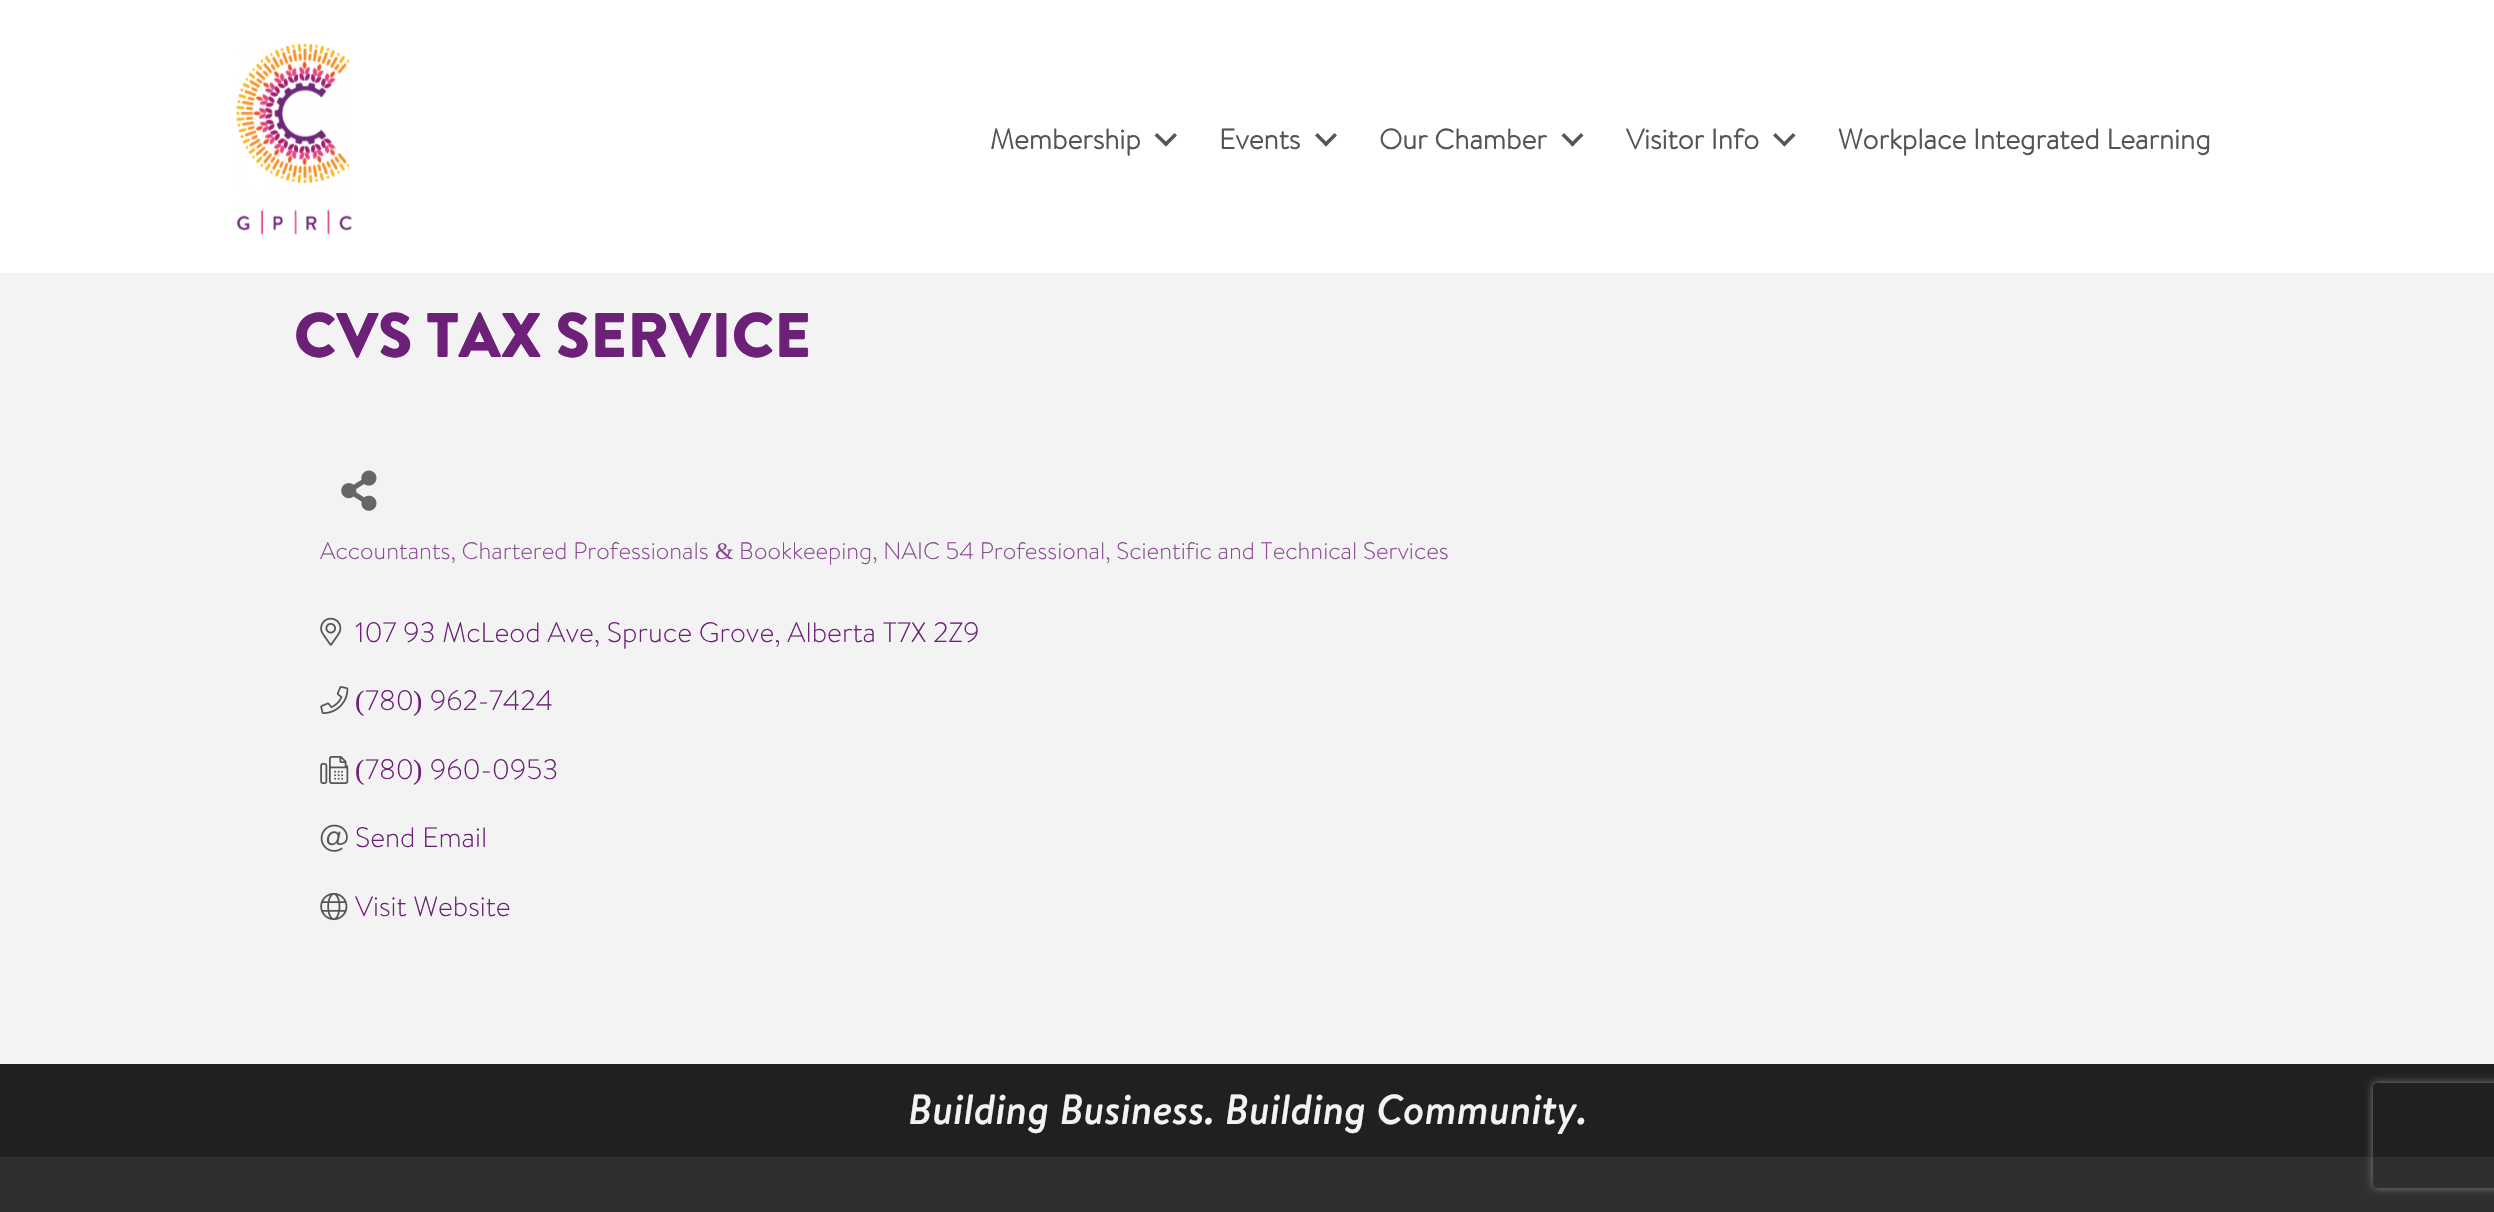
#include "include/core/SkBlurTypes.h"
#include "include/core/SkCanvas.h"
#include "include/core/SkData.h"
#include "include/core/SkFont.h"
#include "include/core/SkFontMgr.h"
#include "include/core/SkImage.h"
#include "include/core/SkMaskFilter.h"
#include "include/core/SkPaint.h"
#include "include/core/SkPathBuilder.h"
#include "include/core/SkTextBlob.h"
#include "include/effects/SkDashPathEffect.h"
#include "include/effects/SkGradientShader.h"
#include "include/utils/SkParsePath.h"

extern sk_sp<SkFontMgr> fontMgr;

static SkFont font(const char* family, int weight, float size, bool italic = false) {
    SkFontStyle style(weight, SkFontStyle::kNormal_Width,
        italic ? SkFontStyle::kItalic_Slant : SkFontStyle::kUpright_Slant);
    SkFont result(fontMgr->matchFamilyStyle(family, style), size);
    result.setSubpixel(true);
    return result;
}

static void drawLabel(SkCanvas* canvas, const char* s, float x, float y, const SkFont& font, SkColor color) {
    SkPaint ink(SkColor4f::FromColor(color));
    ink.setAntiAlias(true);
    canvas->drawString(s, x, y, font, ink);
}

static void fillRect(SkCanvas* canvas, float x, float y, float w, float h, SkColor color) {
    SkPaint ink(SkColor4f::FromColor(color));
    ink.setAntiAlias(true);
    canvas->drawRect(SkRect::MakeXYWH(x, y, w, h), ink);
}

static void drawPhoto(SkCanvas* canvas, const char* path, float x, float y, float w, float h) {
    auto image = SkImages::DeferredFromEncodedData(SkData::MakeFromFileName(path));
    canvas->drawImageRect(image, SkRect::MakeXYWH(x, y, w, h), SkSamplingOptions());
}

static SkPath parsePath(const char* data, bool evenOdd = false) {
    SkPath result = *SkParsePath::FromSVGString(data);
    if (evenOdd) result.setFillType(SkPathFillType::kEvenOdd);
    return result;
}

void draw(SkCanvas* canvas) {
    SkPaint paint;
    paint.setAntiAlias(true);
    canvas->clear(0xFFF3F3F3);
    fillRect(canvas, 0, 0, 2494, 273, 0xFFFFFFFF);
    drawPhoto(canvas, "assets/img1.png", 236, 43, 116, 192);
    SkFont font1 = font("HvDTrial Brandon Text", 700, 28);
    drawLabel(canvas, "Membership", 990, 149, font1, 0xFF555555);
    paint.setColor(0xFF555555);
    canvas->drawPath(parsePath("M1174.5 133L1177 135.5L1166 146.5L1163.5 144Z"), paint);
    canvas->drawPath(parsePath("M1157 133L1168.5 144L1166 146.5L1154.5 135.5Z"), paint);
    drawLabel(canvas, "Events", 1219, 149, font1, 0xFF555555);
    canvas->drawPath(parsePath("M1334.5 133L1337 135.5L1326 146.5L1323.5 144Z"), paint);
    canvas->drawPath(parsePath("M1317.5 133L1328.5 144L1326 146.5L1315 135.5Z"), paint);
    drawLabel(canvas, "Our Chamber", 1379, 149, font1, 0xFF555555);
    canvas->drawPath(parsePath("M1581 133L1583.5 135.5L1572.5 146.5L1570 144Z"), paint);
    canvas->drawPath(parsePath("M1564 133L1575 144L1572.5 146.5L1561.5 135.5Z"), paint);
    drawLabel(canvas, "Visitor Info", 1626, 149, font1, 0xFF555555);
    canvas->drawPath(parsePath("M1793 133L1795.5 135.5L1784.5 146.5L1782 144Z"), paint);
    canvas->drawPath(parsePath("M1775.5 133L1786.5 144L1784.5 146.5L1773 135.5Z"), paint);
    drawLabel(canvas, "Workplace Integrated Learning", 1838, 149, font1, 0xFF555555);
    SkFont font2 = font("Brandon Grotesque", 900, 63);
    drawLabel(canvas, "CVS TAX SERVICE", 294, 357, font2, 0xFF6D2077);
    drawPhoto(canvas, "assets/img2.png", 341, 470, 36, 41);
    SkFont font3 = font("HvDTrial Brandon Text", 300, 23.8f);
    drawLabel(canvas, "Accountants, Chartered Professionals", 320, 559, font3, 0xFF884A90);
    SkFont font4 = font("Liberation Serif", 400, 23.8f);
    drawLabel(canvas, "&", 715, 559, font4, 0xFF884A90);
    drawLabel(canvas, "Bookkeeping, NAIC 54 Professional, Scientific and Technical Services", 739, 559, font3, 0xFF884A90);
    drawPhoto(canvas, "assets/img3.png", 320, 617, 22, 29);
    SkFont font5 = font("HvDTrial Brandon Text", 300, 28);
    drawLabel(canvas, "107 93 McLeod Ave, Spruce Grove, Alberta T7X 2Z9", 355, 642, font5, 0xFF6D2077);
    drawPhoto(canvas, "assets/img4.png", 320, 686, 29, 28);
    SkFont font6 = font("Liberation Serif", 400, 28);
    drawLabel(canvas, "(", 355, 710, font6, 0xFF6D2077);
    drawLabel(canvas, "780", 365, 710, font5, 0xFF6D2077);
    drawLabel(canvas, ")", 413, 710, font6, 0xFF6D2077);
    drawLabel(canvas, "962-7424", 430, 710, font5, 0xFF6D2077);
    drawPhoto(canvas, "assets/img5.png", 320, 756, 29, 28);
    drawLabel(canvas, "(", 355, 779, font6, 0xFF6D2077);
    drawLabel(canvas, "780", 365, 779, font5, 0xFF6D2077);
    drawLabel(canvas, ")", 413, 779, font6, 0xFF6D2077);
    drawLabel(canvas, "960-0953", 430, 779, font5, 0xFF6D2077);
    drawPhoto(canvas, "assets/img6.png", 320, 824, 28, 28);
    drawLabel(canvas, "Send Email", 355, 847, font5, 0xFF6D2077);
    drawPhoto(canvas, "assets/img7.png", 320, 892, 28, 29);
    drawLabel(canvas, "Visit Website", 355, 916, font5, 0xFF6D2077);
    fillRect(canvas, 0, 1064, 2494, 93, 0xFF202020);
    SkFont font7 = font("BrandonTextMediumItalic", 500, 42, true);
    drawLabel(canvas, "Building Business. Building Community.", 908, 1124, font7, 0xFFF3F3F3);
    fillRect(canvas, 0, 1157, 2494, 55, 0xFF2F2F2F);
    canvas->save();
    canvas->clipPath(parsePath("M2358 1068H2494V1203H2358ZM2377 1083H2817C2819 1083 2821 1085 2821 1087V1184C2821 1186 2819 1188 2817 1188H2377C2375 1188 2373 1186 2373 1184V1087C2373 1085 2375 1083 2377 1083Z", true), true);
    paint.setColor(0xFF808080);
    paint.setMaskFilter(SkMaskFilter::MakeBlur(kNormal_SkBlurStyle, 4.5f));
    canvas->drawRoundRect(SkRect::MakeXYWH(2373, 1083, 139, 105), 4, 4, paint);
    paint.setMaskFilter(nullptr);
    canvas->restore();
}
